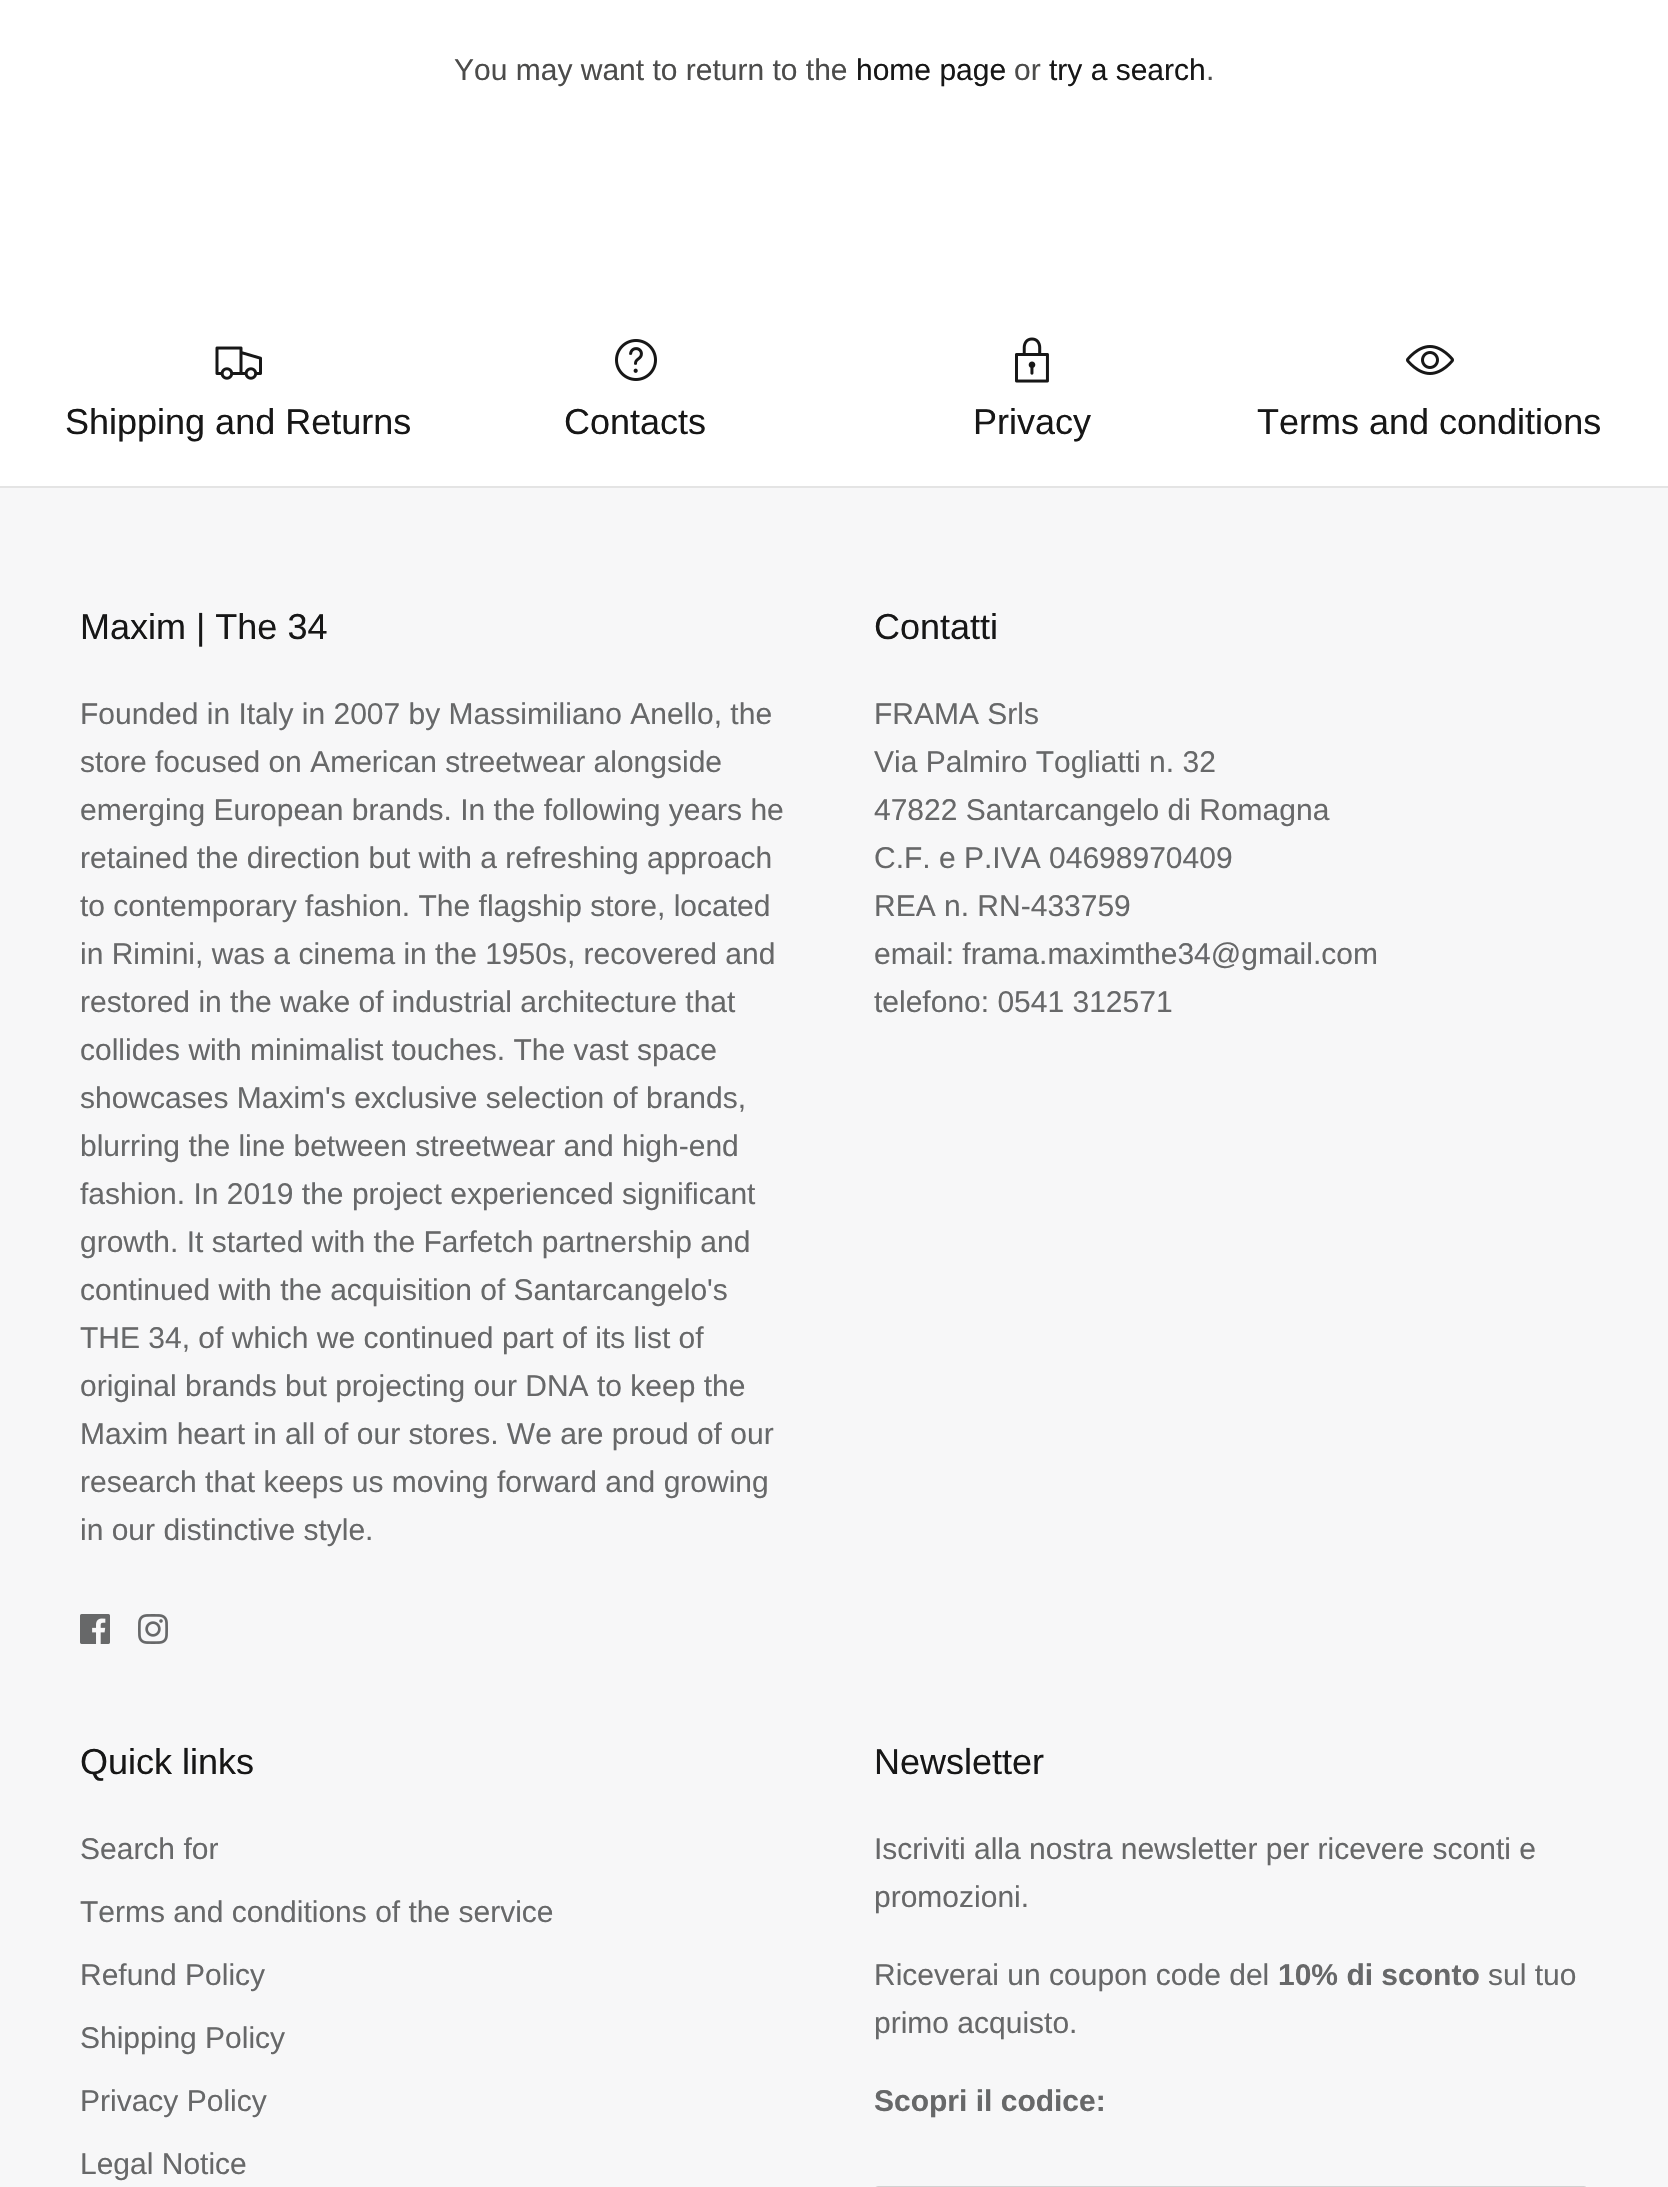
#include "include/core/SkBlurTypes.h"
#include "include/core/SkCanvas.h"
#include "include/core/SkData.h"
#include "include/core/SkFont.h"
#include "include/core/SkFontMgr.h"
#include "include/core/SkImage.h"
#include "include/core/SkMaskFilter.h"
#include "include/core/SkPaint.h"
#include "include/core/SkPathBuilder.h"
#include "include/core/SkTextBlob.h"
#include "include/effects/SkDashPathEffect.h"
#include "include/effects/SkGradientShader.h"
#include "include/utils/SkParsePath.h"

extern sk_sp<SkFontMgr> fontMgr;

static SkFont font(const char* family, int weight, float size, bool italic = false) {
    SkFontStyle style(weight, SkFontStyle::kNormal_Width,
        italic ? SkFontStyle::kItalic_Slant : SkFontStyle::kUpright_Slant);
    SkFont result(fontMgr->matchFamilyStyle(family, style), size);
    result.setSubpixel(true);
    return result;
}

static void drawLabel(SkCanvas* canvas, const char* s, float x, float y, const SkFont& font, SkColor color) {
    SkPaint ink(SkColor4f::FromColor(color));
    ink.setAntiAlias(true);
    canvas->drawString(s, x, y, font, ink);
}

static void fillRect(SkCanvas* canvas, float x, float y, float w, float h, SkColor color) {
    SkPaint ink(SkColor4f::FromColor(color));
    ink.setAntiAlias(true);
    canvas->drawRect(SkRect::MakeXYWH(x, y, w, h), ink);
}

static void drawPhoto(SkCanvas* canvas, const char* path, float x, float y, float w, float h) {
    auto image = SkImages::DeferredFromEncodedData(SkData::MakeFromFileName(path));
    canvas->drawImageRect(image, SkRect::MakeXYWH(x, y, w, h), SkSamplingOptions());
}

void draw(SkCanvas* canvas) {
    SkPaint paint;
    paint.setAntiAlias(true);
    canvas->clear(0xFFFFFFFF);
    SkFont font1 = font("Arimo", 400, 30);
    drawLabel(canvas, "You may want to return to the", 454, 80, font1, 0xFF4C4C4B);
    drawLabel(canvas, "home page", 856, 80, font1, 0xFF171717);
    drawLabel(canvas, "or", 1014, 80, font1, 0xFF4C4C4B);
    drawLabel(canvas, "try a search", 1049, 80, font1, 0xFF171717);
    drawLabel(canvas, ".", 1206, 80, font1, 0xFF4C4C4B);
    fillRect(canvas, 0, 488, 1668, 1699, 0xFFF7F7F8);
    drawPhoto(canvas, "assets/img1.png", 215, 346, 47, 34);
    SkFont font2 = font("Arimo", 400, 36);
    drawLabel(canvas, "Shipping and Returns", 65, 434, font2, 0xFF171717);
    drawPhoto(canvas, "assets/img2.png", 615, 339, 42, 42);
    drawLabel(canvas, "Contacts", 564, 434, font2, 0xFF171717);
    drawPhoto(canvas, "assets/img3.png", 1015, 337, 34, 46);
    drawLabel(canvas, "Privacy", 973, 434, font2, 0xFF171717);
    drawPhoto(canvas, "assets/img4.png", 1406, 345, 48, 30);
    drawLabel(canvas, "Terms and conditions", 1257, 434, font2, 0xFF171717);
    fillRect(canvas, 0, 486, 1668, 2, 0xFFE4E4E4);
    drawLabel(canvas, "Maxim | The 34", 80, 639, font2, 0xFF171717);
    drawLabel(canvas, "Founded in Italy in 2007 by Massimiliano Anello, the", 80, 724, font1, 0xFF676869);
    drawLabel(canvas, "store focused on American streetwear alongside", 80, 772, font1, 0xFF676869);
    drawLabel(canvas, "emerging European brands. In the following years he", 80, 820, font1, 0xFF676869);
    drawLabel(canvas, "retained the direction but with a refreshing approach", 80, 868, font1, 0xFF676869);
    drawLabel(canvas, "to contemporary fashion. The flagship store, located", 80, 916, font1, 0xFF676869);
    drawLabel(canvas, "in Rimini, was a cinema in the 1950s, recovered and", 80, 964, font1, 0xFF676869);
    drawLabel(canvas, "restored in the wake of industrial architecture that", 80, 1012, font1, 0xFF676869);
    drawLabel(canvas, "collides with minimalist touches. The vast space", 80, 1060, font1, 0xFF676869);
    drawLabel(canvas, "showcases Maxim's exclusive selection of brands,", 80, 1108, font1, 0xFF676869);
    drawLabel(canvas, "blurring the line between streetwear and high-end", 80, 1156, font1, 0xFF676869);
    drawLabel(canvas, "fashion. In 2019 the project experienced significant", 80, 1204, font1, 0xFF676869);
    drawLabel(canvas, "growth. It started with the Farfetch partnership and", 80, 1252, font1, 0xFF676869);
    drawLabel(canvas, "continued with the acquisition of Santarcangelo's", 80, 1300, font1, 0xFF676869);
    drawLabel(canvas, "THE 34, of which we continued part of its list of", 80, 1348, font1, 0xFF676869);
    drawLabel(canvas, "original brands but projecting our DNA to keep the", 80, 1396, font1, 0xFF676869);
    drawLabel(canvas, "Maxim heart in all of our stores. We are proud of our", 80, 1444, font1, 0xFF676869);
    drawLabel(canvas, "research that keeps us moving forward and growing", 80, 1492, font1, 0xFF676869);
    drawLabel(canvas, "in our distinctive style.", 80, 1540, font1, 0xFF676869);
    drawPhoto(canvas, "assets/img5.png", 80, 1614, 30, 30);
    drawPhoto(canvas, "assets/img6.png", 138, 1614, 30, 30);
    drawLabel(canvas, "Contatti", 874, 639, font2, 0xFF171717);
    drawLabel(canvas, "FRAMA Srls", 874, 724, font1, 0xFF676869);
    drawLabel(canvas, "Via Palmiro Togliatti n. 32", 874, 772, font1, 0xFF676869);
    drawLabel(canvas, "47822 Santarcangelo di Romagna", 874, 820, font1, 0xFF676869);
    drawLabel(canvas, "C.F. e P.IVA 04698970409", 874, 868, font1, 0xFF676869);
    drawLabel(canvas, "REA n. RN-433759", 874, 916, font1, 0xFF676869);
    drawLabel(canvas, "email: frama.maximthe34@gmail.com", 874, 964, font1, 0xFF676869);
    drawLabel(canvas, "telefono: 0541 312571", 874, 1012, font1, 0xFF676869);
    drawLabel(canvas, "Quick links", 80, 1774, font2, 0xFF171717);
    drawLabel(canvas, "Search for", 80, 1859, font1, 0xFF676869);
    drawLabel(canvas, "Terms and conditions of the service", 80, 1922, font1, 0xFF676869);
    drawLabel(canvas, "Refund Policy", 80, 1985, font1, 0xFF676869);
    drawLabel(canvas, "Shipping Policy", 80, 2048, font1, 0xFF676869);
    drawLabel(canvas, "Privacy Policy", 80, 2111, font1, 0xFF676869);
    drawLabel(canvas, "Legal Notice", 80, 2174, font1, 0xFF676869);
    drawLabel(canvas, "Newsletter", 874, 1774, font2, 0xFF171717);
    drawLabel(canvas, "Iscriviti alla nostra newsletter per ricevere sconti e", 874, 1859, font1, 0xFF676869);
    drawLabel(canvas, "promozioni.", 874, 1907, font1, 0xFF676869);
    drawLabel(canvas, "Riceverai un coupon code del", 874, 1985, font1, 0xFF676869);
    SkFont font3 = font("Arimo", 700, 30);
    drawLabel(canvas, "10% di sconto", 1278, 1985, font3, 0xFF676869);
    drawLabel(canvas, "sul tuo", 1488, 1985, font1, 0xFF676869);
    drawLabel(canvas, "primo acquisto.", 874, 2033, font1, 0xFF676869);
    drawLabel(canvas, "Scopri il codice:", 874, 2111, font3, 0xFF676869);
    paint.setStroke(true);
    paint.setStrokeWidth(2);
    paint.setColor(0xFFD2D2D2);
    canvas->drawRoundRect(SkRect::MakeXYWH(875, 2187, 712, 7), 5, 5, paint);
}
